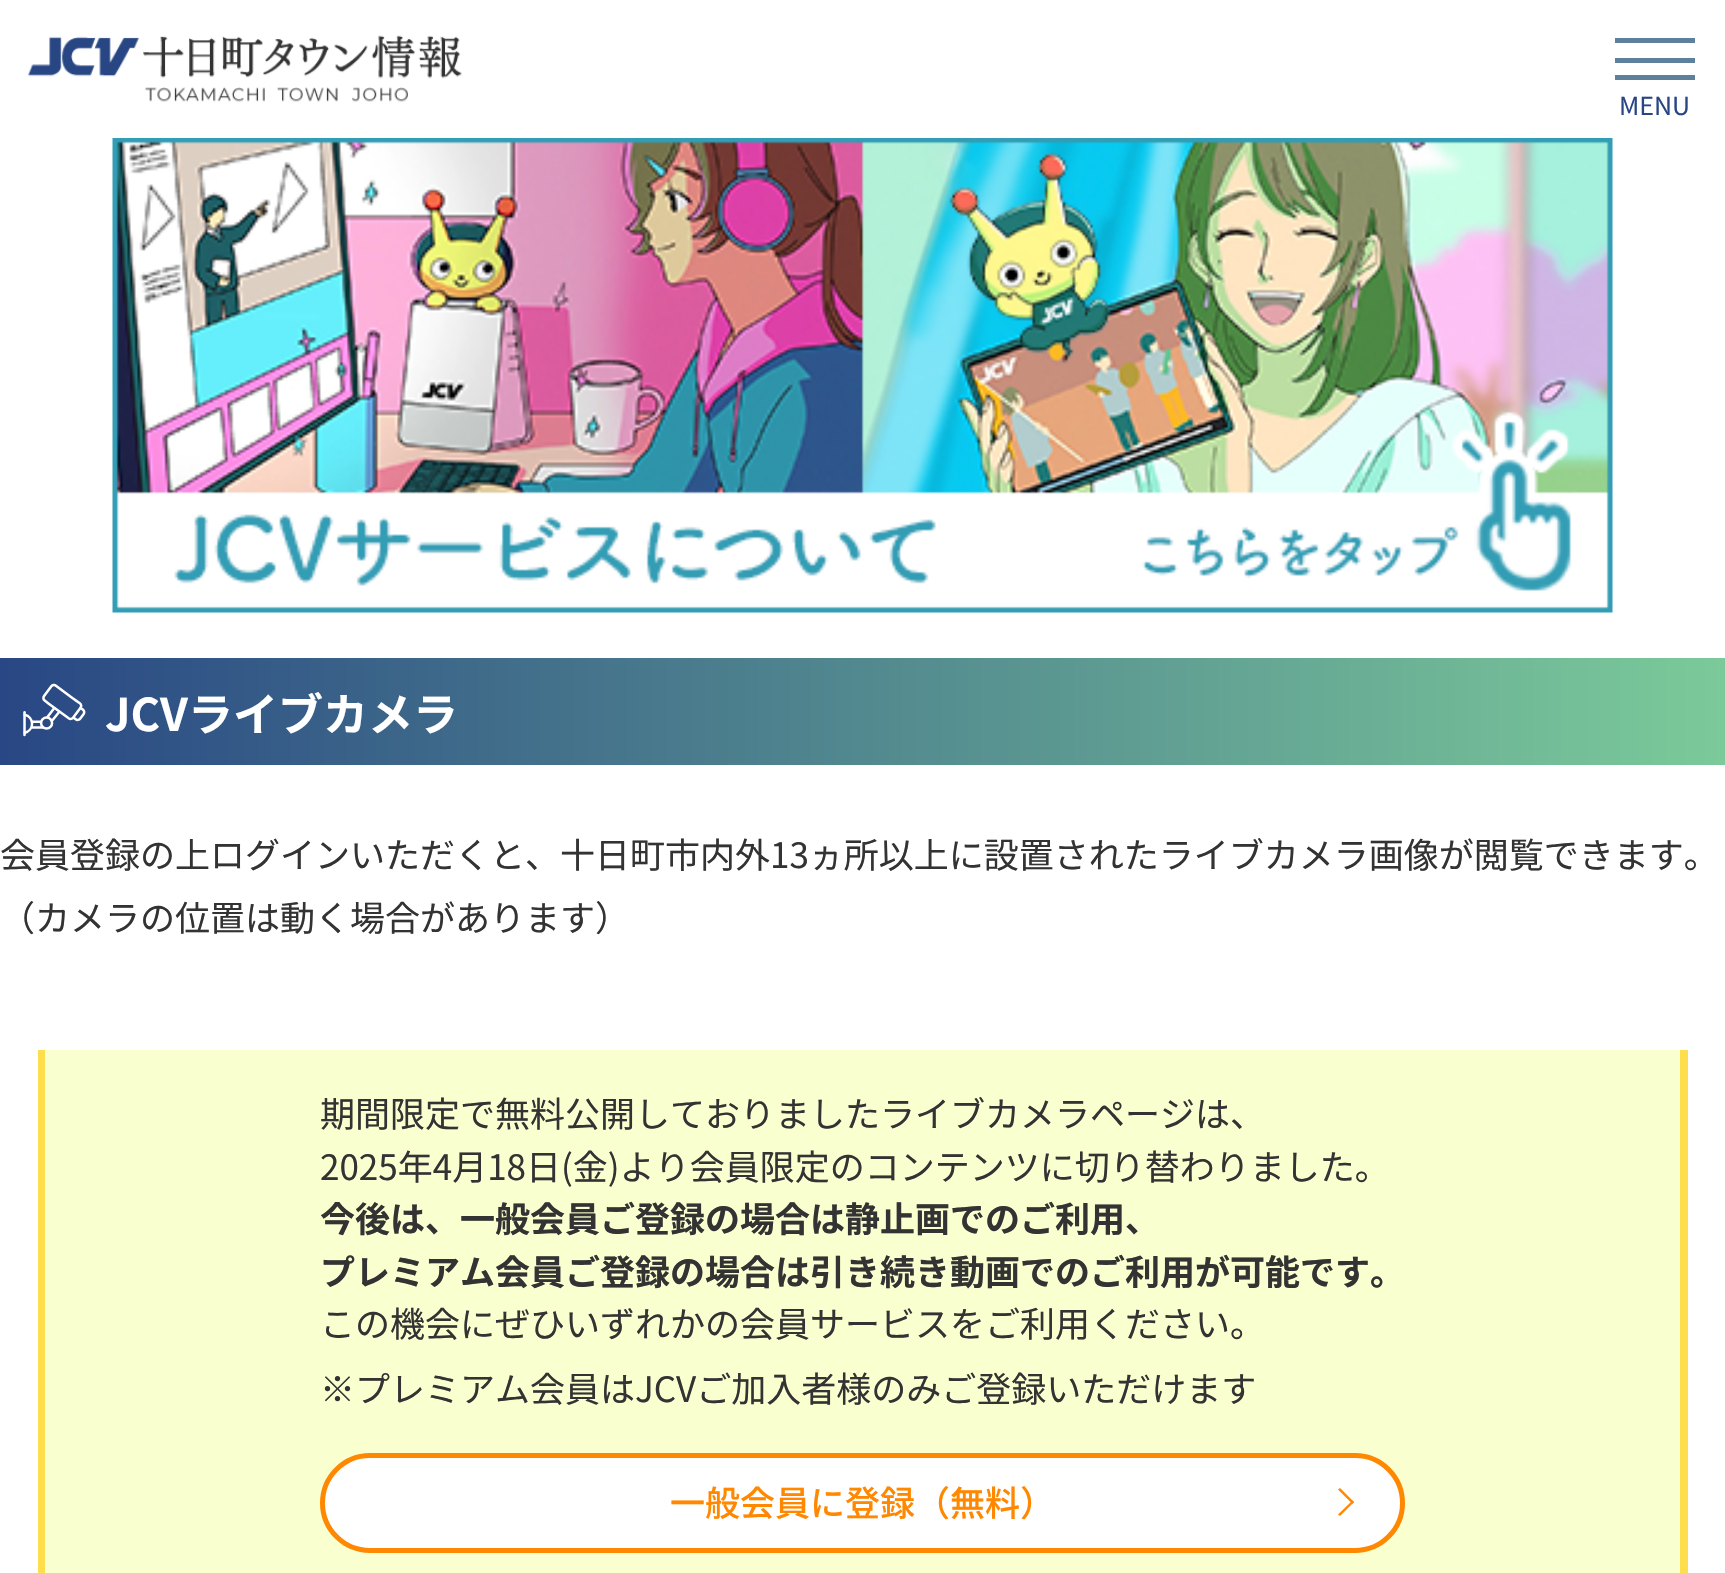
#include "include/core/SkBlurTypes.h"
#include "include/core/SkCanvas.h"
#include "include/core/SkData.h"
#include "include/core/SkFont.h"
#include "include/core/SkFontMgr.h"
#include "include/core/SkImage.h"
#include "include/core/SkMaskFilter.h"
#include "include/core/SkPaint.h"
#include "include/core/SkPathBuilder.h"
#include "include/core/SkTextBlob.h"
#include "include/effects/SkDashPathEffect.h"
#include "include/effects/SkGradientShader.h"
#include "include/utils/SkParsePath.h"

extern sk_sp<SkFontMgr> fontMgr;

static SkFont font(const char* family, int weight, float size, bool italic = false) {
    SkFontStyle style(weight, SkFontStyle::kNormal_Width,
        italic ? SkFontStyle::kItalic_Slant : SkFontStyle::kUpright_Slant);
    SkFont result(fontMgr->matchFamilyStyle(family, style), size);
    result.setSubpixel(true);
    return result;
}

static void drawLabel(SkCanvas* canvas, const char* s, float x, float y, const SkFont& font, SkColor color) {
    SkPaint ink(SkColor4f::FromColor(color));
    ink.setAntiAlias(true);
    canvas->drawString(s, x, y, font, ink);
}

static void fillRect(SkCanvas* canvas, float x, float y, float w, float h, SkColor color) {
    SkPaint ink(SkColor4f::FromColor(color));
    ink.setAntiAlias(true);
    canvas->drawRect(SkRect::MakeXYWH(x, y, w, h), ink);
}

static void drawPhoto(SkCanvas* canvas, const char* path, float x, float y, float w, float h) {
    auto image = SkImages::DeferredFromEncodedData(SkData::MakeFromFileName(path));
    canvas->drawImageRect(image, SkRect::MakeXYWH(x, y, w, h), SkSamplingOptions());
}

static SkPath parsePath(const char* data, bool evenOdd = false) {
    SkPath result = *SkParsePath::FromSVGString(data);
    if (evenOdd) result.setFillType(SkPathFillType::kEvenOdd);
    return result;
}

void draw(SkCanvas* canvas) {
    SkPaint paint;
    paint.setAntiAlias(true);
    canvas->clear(0xFFFFFFFF);
    drawPhoto(canvas, "assets/img1.png", 28, 35, 434, 67);
    fillRect(canvas, 1615, 58, 80, 5, 0xFF5D809D);
    fillRect(canvas, 1615, 38, 80, 5, 0xFF5D809D);
    fillRect(canvas, 1615, 75, 80, 5, 0xFF5D809D);
    SkFont font1 = font("Noto Sans JP", 400, 25);
    drawLabel(canvas, "MENU", 1619, 115, font1, 0xFF284684);
    drawPhoto(canvas, "assets/img2.png", 112, 138, 1501, 475);
    {
        const SkColor colors[] = {0xFF284684, 0xFF7CCB9A};
        const float stops[] = {0, 1};
        const SkPoint ends[] = {{-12, 711}, {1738, 711}};
        paint.setShader(SkGradientShader::MakeLinear(ends, colors, stops, 2, SkTileMode::kClamp));
        paint.setAlpha(255);
    }
    canvas->drawRect(SkRect::MakeXYWH(0, 658, 1725, 107), paint);
    drawPhoto(canvas, "assets/img3.png", 23, 683, 63, 54);
    SkFont font2 = font("Noto Sans JP", 700, 45);
    drawLabel(canvas, "JCVライブカメラ", 105, 731, font2, 0xFFFFFFFF);
    SkFont font3 = font("Noto Sans JP", 400, 35);
    drawLabel(canvas, "会員登録の上ログインいただくと、十日町市内外13ヵ所以上に設置されたライブカメラ画像が閲覧できます。", 0, 868, font3, 0xFF333333);
    drawLabel(canvas, "（カメラの位置は動く場合があります）", 0, 931, font3, 0xFF333333);
    fillRect(canvas, 45, 1050, 1635, 523, 0xFFF9FFCF);
    paint.setShader(nullptr);
    paint.setColor(0xFFFFDE4D);
    canvas->drawPath(parsePath("M38 1050H1688V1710C1688 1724 1676 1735 1662 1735H62C49 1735 38 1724 38 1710ZM45 1050H1680V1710C1680 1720 1672 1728 1662 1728H62C53 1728 45 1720 45 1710Z", true), paint);
    drawLabel(canvas, "期間限定で無料公開しておりましたライブカメラページは、", 320, 1127, font3, 0xFF333333);
    drawLabel(canvas, "2025年4月18日(金)より会員限定のコンテンツに切り替わりました。", 320, 1180, font3, 0xFF333333);
    SkFont font4 = font("Noto Sans JP", 700, 35);
    drawLabel(canvas, "今後は、一般会員ご登録の場合は静止画でのご利用、", 320, 1232, font4, 0xFF333333);
    drawLabel(canvas, "プレミアム会員ご登録の場合は引き続き動画でのご利用が可能です。", 320, 1285, font4, 0xFF333333);
    drawLabel(canvas, "この機会にぜひいずれかの会員サービスをご利用ください。", 320, 1337, font3, 0xFF333333);
    drawLabel(canvas, "※プレミアム会員はJCVご加入者様のみご登録いただけます", 320, 1402, font3, 0xFF333333);
    paint.setColor(0xFFFFFFFF);
    canvas->drawRoundRect(SkRect::MakeXYWH(322.5f, 1455.5f, 1080, 95), 47.5f, 47.5f, paint);
    paint.setStroke(true);
    paint.setStrokeWidth(5);
    paint.setColor(0xFFFF8800);
    canvas->drawRoundRect(SkRect::MakeXYWH(322.5f, 1455.5f, 1080, 95), 47.5f, 47.5f, paint);
    SkFont font5 = font("Noto Sans JP", 500, 35);
    drawLabel(canvas, "一般会員に登録（無料）", 670, 1516, font5, 0xFFFF8800);
    paint.setStroke(false);
    canvas->drawPath(parsePath("M1340 1488L1354 1502L1352.5 1504L1338 1489.5Z"), paint);
    canvas->drawPath(parsePath("M1352.5 1500.5L1354 1502L1340 1516L1338 1514.5Z"), paint);
}
